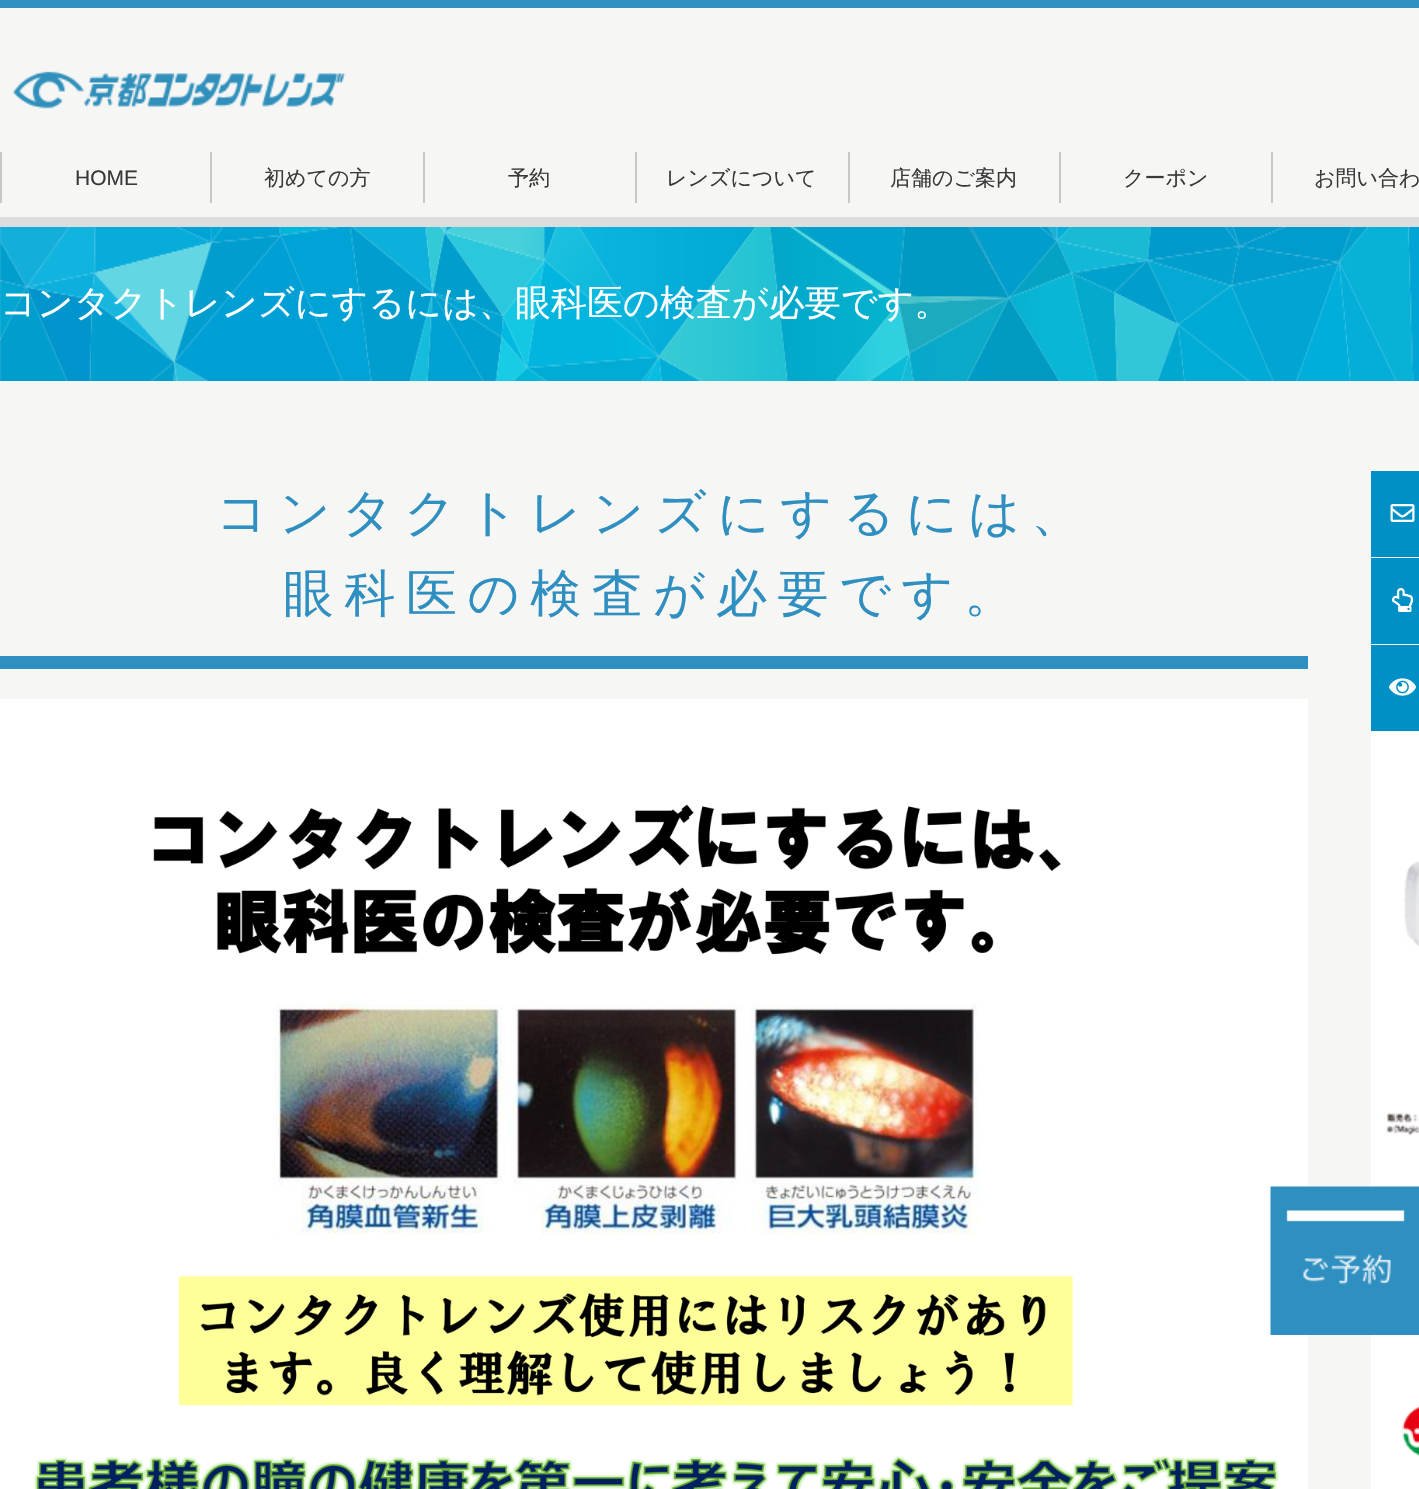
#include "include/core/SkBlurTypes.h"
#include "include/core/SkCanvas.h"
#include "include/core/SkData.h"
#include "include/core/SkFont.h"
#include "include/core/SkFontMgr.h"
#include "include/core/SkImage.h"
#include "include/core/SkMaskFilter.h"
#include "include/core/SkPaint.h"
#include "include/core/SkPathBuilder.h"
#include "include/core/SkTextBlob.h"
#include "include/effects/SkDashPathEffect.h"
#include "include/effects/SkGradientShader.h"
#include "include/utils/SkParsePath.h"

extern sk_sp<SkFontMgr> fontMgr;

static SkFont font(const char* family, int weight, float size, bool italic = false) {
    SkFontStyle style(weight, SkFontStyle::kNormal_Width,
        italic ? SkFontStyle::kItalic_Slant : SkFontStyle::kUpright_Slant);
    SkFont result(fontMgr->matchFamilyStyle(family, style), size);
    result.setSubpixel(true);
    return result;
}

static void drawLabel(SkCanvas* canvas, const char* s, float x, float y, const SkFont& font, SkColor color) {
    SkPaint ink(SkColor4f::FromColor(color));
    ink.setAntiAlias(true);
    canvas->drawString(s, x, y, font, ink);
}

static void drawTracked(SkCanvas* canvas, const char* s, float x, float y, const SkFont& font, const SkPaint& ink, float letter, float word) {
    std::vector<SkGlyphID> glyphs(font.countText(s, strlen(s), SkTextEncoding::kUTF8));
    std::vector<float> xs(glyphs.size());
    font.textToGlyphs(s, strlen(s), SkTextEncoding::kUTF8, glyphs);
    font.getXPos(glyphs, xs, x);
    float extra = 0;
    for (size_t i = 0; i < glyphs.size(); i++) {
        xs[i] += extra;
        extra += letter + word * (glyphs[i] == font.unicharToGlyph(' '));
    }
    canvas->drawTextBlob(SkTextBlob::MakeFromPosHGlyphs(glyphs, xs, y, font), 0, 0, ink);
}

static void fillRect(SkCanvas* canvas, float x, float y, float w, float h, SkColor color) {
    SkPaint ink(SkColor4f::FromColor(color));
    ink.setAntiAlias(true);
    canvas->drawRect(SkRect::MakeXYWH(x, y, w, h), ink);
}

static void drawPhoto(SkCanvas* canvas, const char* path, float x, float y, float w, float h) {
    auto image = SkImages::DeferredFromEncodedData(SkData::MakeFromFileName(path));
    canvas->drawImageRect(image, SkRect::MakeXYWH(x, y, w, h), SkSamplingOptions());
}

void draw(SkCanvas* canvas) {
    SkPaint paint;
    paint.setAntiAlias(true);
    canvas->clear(0xFFF6F6F5);
    fillRect(canvas, 0, 0, 1419, 8, 0xFF2F8FC0);
    drawPhoto(canvas, "assets/img1.png", 13, 71, 333, 38);
    fillRect(canvas, 0, 217, 1419, 10, 0xFFDDDDDD);
    fillRect(canvas, 210, 152, 2, 51, 0xFFC7C7C7);
    fillRect(canvas, 0, 152, 2, 51, 0xFFC7C7C7);
    SkFont font1 = font("Liberation Sans", 400, 21);
    drawLabel(canvas, "HOME", 75, 185, font1, 0xFF393939);
    fillRect(canvas, 423, 152, 2, 51, 0xFFC7C7C7);
    SkFont font2 = font("WenQuanYi Zen Hei", 500, 21);
    drawLabel(canvas, "初めての方", 264, 185, font2, 0xFF393939);
    fillRect(canvas, 635, 152, 2, 51, 0xFFC7C7C7);
    drawLabel(canvas, "予約", 508, 185, font2, 0xFF393939);
    fillRect(canvas, 848, 152, 2, 51, 0xFFC7C7C7);
    drawLabel(canvas, "レンズについて", 666, 185, font2, 0xFF393939);
    fillRect(canvas, 1059, 152, 2, 51, 0xFFC7C7C7);
    drawLabel(canvas, "店舗のご案内", 890, 185, font2, 0xFF393939);
    fillRect(canvas, 1271, 152, 2, 51, 0xFFC7C7C7);
    drawLabel(canvas, "クーポン", 1123, 185, font2, 0xFF393939);
    drawLabel(canvas, "お問い合わ", 1314, 185, font2, 0xFF393939);
    drawPhoto(canvas, "assets/img2.png", 0, 227, 1419, 154);
    SkFont font3 = font("WenQuanYi Zen Hei", 500, 36);
    drawLabel(canvas, "コンタクトレンズにするには、眼科医の検査が必要です。", 0, 315, font3, 0xFFFFFFFF);
    fillRect(canvas, 0, 656, 1308, 13, 0xFF2F8FC0);
    SkFont font4 = font("WenQuanYi Zen Hei", 500, 51);
    paint.setColor(0xFF2F8FC0);
    drawTracked(canvas, "コンタクトレンズにするには、", 216, 530, font4, paint, 10.5f, 0);
    drawTracked(canvas, "眼科医の検査が必要です。", 283, 611, font4, paint, 10.5f, 0);
    drawPhoto(canvas, "assets/img3.png", 0, 699, 1308, 790);
    fillRect(canvas, 1371, 471, 48, 86, 0xFF0090C5);
    drawPhoto(canvas, "assets/img4.png", 1390, 504, 25, 18);
    fillRect(canvas, 1371, 558, 48, 86, 0xFF0090C5);
    drawPhoto(canvas, "assets/img5.png", 1392, 588, 21, 24);
    fillRect(canvas, 1371, 645, 48, 86, 0xFF0090C5);
    drawPhoto(canvas, "assets/img6.png", 1389, 678, 27, 18);
    drawPhoto(canvas, "assets/img7.png", 1371, 732, 48, 757);
    drawPhoto(canvas, "assets/img8.png", 1270, 1186, 149, 149);
}
